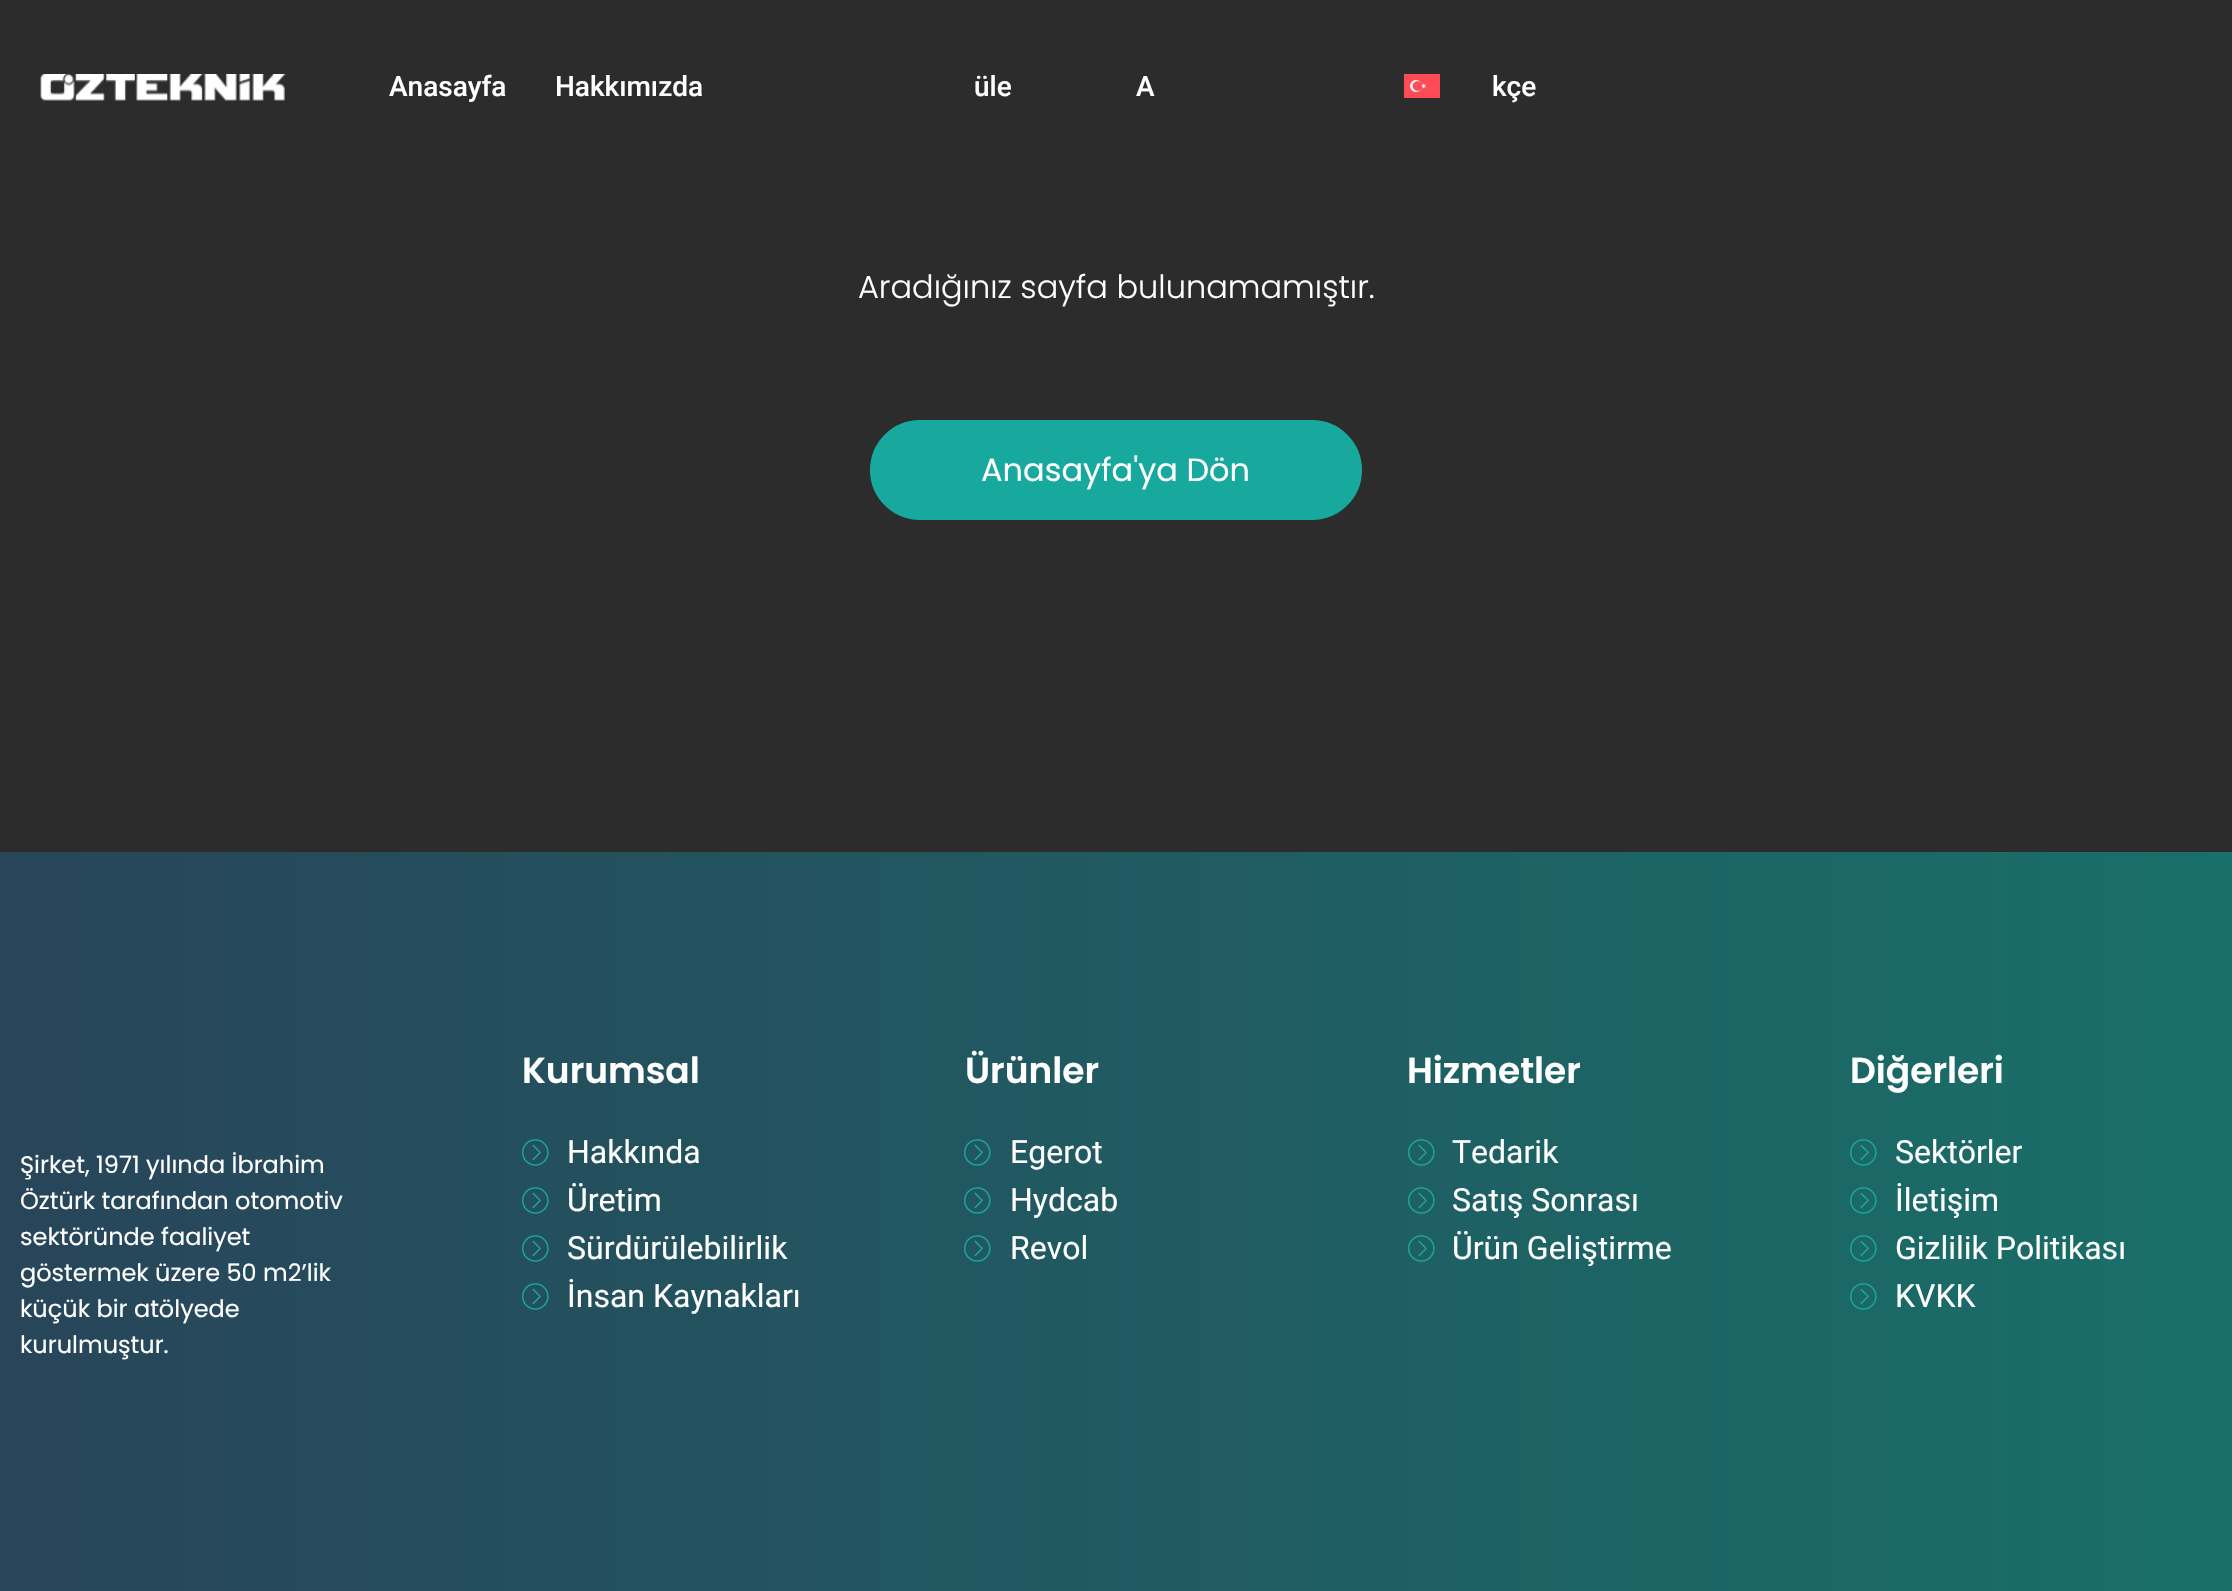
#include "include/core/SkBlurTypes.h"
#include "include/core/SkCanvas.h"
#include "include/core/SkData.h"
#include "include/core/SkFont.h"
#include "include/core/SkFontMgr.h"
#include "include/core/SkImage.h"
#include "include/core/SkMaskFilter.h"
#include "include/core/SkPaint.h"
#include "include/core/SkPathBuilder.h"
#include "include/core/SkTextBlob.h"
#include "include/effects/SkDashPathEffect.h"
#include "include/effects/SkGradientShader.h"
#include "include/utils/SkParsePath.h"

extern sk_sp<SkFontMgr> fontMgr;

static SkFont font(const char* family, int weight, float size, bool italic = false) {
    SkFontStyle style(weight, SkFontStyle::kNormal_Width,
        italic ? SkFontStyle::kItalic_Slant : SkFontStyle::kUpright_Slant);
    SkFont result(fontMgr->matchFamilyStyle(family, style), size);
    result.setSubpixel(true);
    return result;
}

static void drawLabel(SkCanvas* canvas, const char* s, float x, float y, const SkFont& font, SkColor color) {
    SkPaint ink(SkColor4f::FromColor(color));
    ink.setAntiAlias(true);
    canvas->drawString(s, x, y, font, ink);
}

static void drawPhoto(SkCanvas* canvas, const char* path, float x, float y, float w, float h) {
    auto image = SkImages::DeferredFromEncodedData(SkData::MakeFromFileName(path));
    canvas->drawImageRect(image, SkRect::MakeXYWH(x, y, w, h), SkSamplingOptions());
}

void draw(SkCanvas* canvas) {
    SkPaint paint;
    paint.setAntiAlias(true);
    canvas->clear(0xFF2C2C2C);
    drawPhoto(canvas, "assets/img1.png", 40, 74, 246, 27);
    SkFont font1 = font("Roboto", 500, 28);
    drawLabel(canvas, "Anasayfa", 389, 96, font1, 0xFFFFFFFF);
    drawLabel(canvas, "Hakkımızda", 555, 96, font1, 0xFFFFFFFF);
    drawLabel(canvas, "üle", 974, 96, font1, 0xFFFFFFFF);
    drawLabel(canvas, "A", 1136, 96, font1, 0xFFFFFFFF);
    drawPhoto(canvas, "assets/img2.png", 1404, 74, 36, 24);
    drawLabel(canvas, "kçe", 1492, 96, font1, 0xFFFFFFFF);
    SkFont font2 = font("Poppins", 300, 32);
    drawLabel(canvas, "Aradığınız sayfa bulunamamıştır.", 858, 298, font2, 0xFFFFFFFF);
    paint.setColor(0xFF18A99E);
    canvas->drawRoundRect(SkRect::MakeXYWH(871, 421, 490, 98), 49, 49, paint);
    paint.setStroke(true);
    paint.setStrokeWidth(2);
    canvas->drawRoundRect(SkRect::MakeXYWH(871, 421, 490, 98), 49, 49, paint);
    SkFont font3 = font("Poppins", 400, 32);
    drawLabel(canvas, "Anasayfa'ya Dön", 981, 481, font3, 0xFFFFFFFF);
    paint.setStroke(false);
    {
        const SkColor colors[] = {0xFF28455A, 0xFF196F69};
        const float stops[] = {0, 1};
        const SkPoint ends[] = {{0, 1222}, {2232, 1222}};
        paint.setShader(SkGradientShader::MakeLinear(ends, colors, stops, 2, SkTileMode::kClamp));
        paint.setAlpha(255);
    }
    canvas->drawRect(SkRect::MakeXYWH(0, 852, 2232, 739), paint);
    SkFont font4 = font("Poppins", 400, 24);
    drawLabel(canvas, "Şirket, 1971 yılında İbrahim", 20, 1173, font4, 0xFFFFFFFF);
    drawLabel(canvas, "Öztürk tarafından otomotiv", 20, 1209, font4, 0xFFFFFFFF);
    drawLabel(canvas, "sektöründe faaliyet", 20, 1245, font4, 0xFFFFFFFF);
    drawLabel(canvas, "göstermek üzere 50 m2’lik", 20, 1281, font4, 0xFFFFFFFF);
    drawLabel(canvas, "küçük bir atölyede", 20, 1317, font4, 0xFFFFFFFF);
    drawLabel(canvas, "kurulmuştur.", 20, 1353, font4, 0xFFFFFFFF);
    SkFont font5 = font("Poppins", 600, 36);
    drawLabel(canvas, "Kurumsal", 522, 1083, font5, 0xFFFFFFFF);
    drawPhoto(canvas, "assets/img3.png", 522, 1139, 27, 27);
    SkFont font6 = font("Roboto", 400, 32);
    drawLabel(canvas, "Hakkında", 567, 1163, font6, 0xFFFFFFFF);
    drawPhoto(canvas, "assets/img3.png", 522, 1187, 27, 27);
    drawLabel(canvas, "Üretim", 567, 1211, font6, 0xFFFFFFFF);
    drawPhoto(canvas, "assets/img3.png", 522, 1235, 27, 27);
    drawLabel(canvas, "Sürdürülebilirlik", 567, 1259, font6, 0xFFFFFFFF);
    drawPhoto(canvas, "assets/img3.png", 522, 1283, 27, 27);
    drawLabel(canvas, "İnsan Kaynakları", 567, 1307, font6, 0xFFFFFFFF);
    drawLabel(canvas, "Ürünler", 965, 1083, font5, 0xFFFFFFFF);
    drawPhoto(canvas, "assets/img4.png", 964, 1139, 27, 27);
    drawLabel(canvas, "Egerot", 1010, 1163, font6, 0xFFFFFFFF);
    drawPhoto(canvas, "assets/img4.png", 964, 1187, 27, 27);
    drawLabel(canvas, "Hydcab", 1010, 1211, font6, 0xFFFFFFFF);
    drawPhoto(canvas, "assets/img4.png", 964, 1235, 27, 27);
    drawLabel(canvas, "Revol", 1010, 1259, font6, 0xFFFFFFFF);
    drawLabel(canvas, "Hizmetler", 1407, 1083, font5, 0xFFFFFFFF);
    drawPhoto(canvas, "assets/img5.png", 1408, 1139, 27, 27);
    drawLabel(canvas, "Tedarik", 1452, 1163, font6, 0xFFFFFFFF);
    drawPhoto(canvas, "assets/img5.png", 1408, 1187, 27, 27);
    drawLabel(canvas, "Satış Sonrası", 1452, 1211, font6, 0xFFFFFFFF);
    drawPhoto(canvas, "assets/img5.png", 1408, 1235, 27, 27);
    drawLabel(canvas, "Ürün Geliştirme", 1452, 1259, font6, 0xFFFFFFFF);
    drawLabel(canvas, "Diğerleri", 1850, 1083, font5, 0xFFFFFFFF);
    drawPhoto(canvas, "assets/img6.png", 1850, 1139, 27, 27);
    drawLabel(canvas, "Sektörler", 1895, 1163, font6, 0xFFFFFFFF);
    drawPhoto(canvas, "assets/img6.png", 1850, 1187, 27, 27);
    drawLabel(canvas, "İletişim", 1895, 1211, font6, 0xFFFFFFFF);
    drawPhoto(canvas, "assets/img6.png", 1850, 1235, 27, 27);
    drawLabel(canvas, "Gizlilik Politikası", 1895, 1259, font6, 0xFFFFFFFF);
    drawPhoto(canvas, "assets/img6.png", 1850, 1283, 27, 27);
    drawLabel(canvas, "KVKK", 1895, 1307, font6, 0xFFFFFFFF);
}
